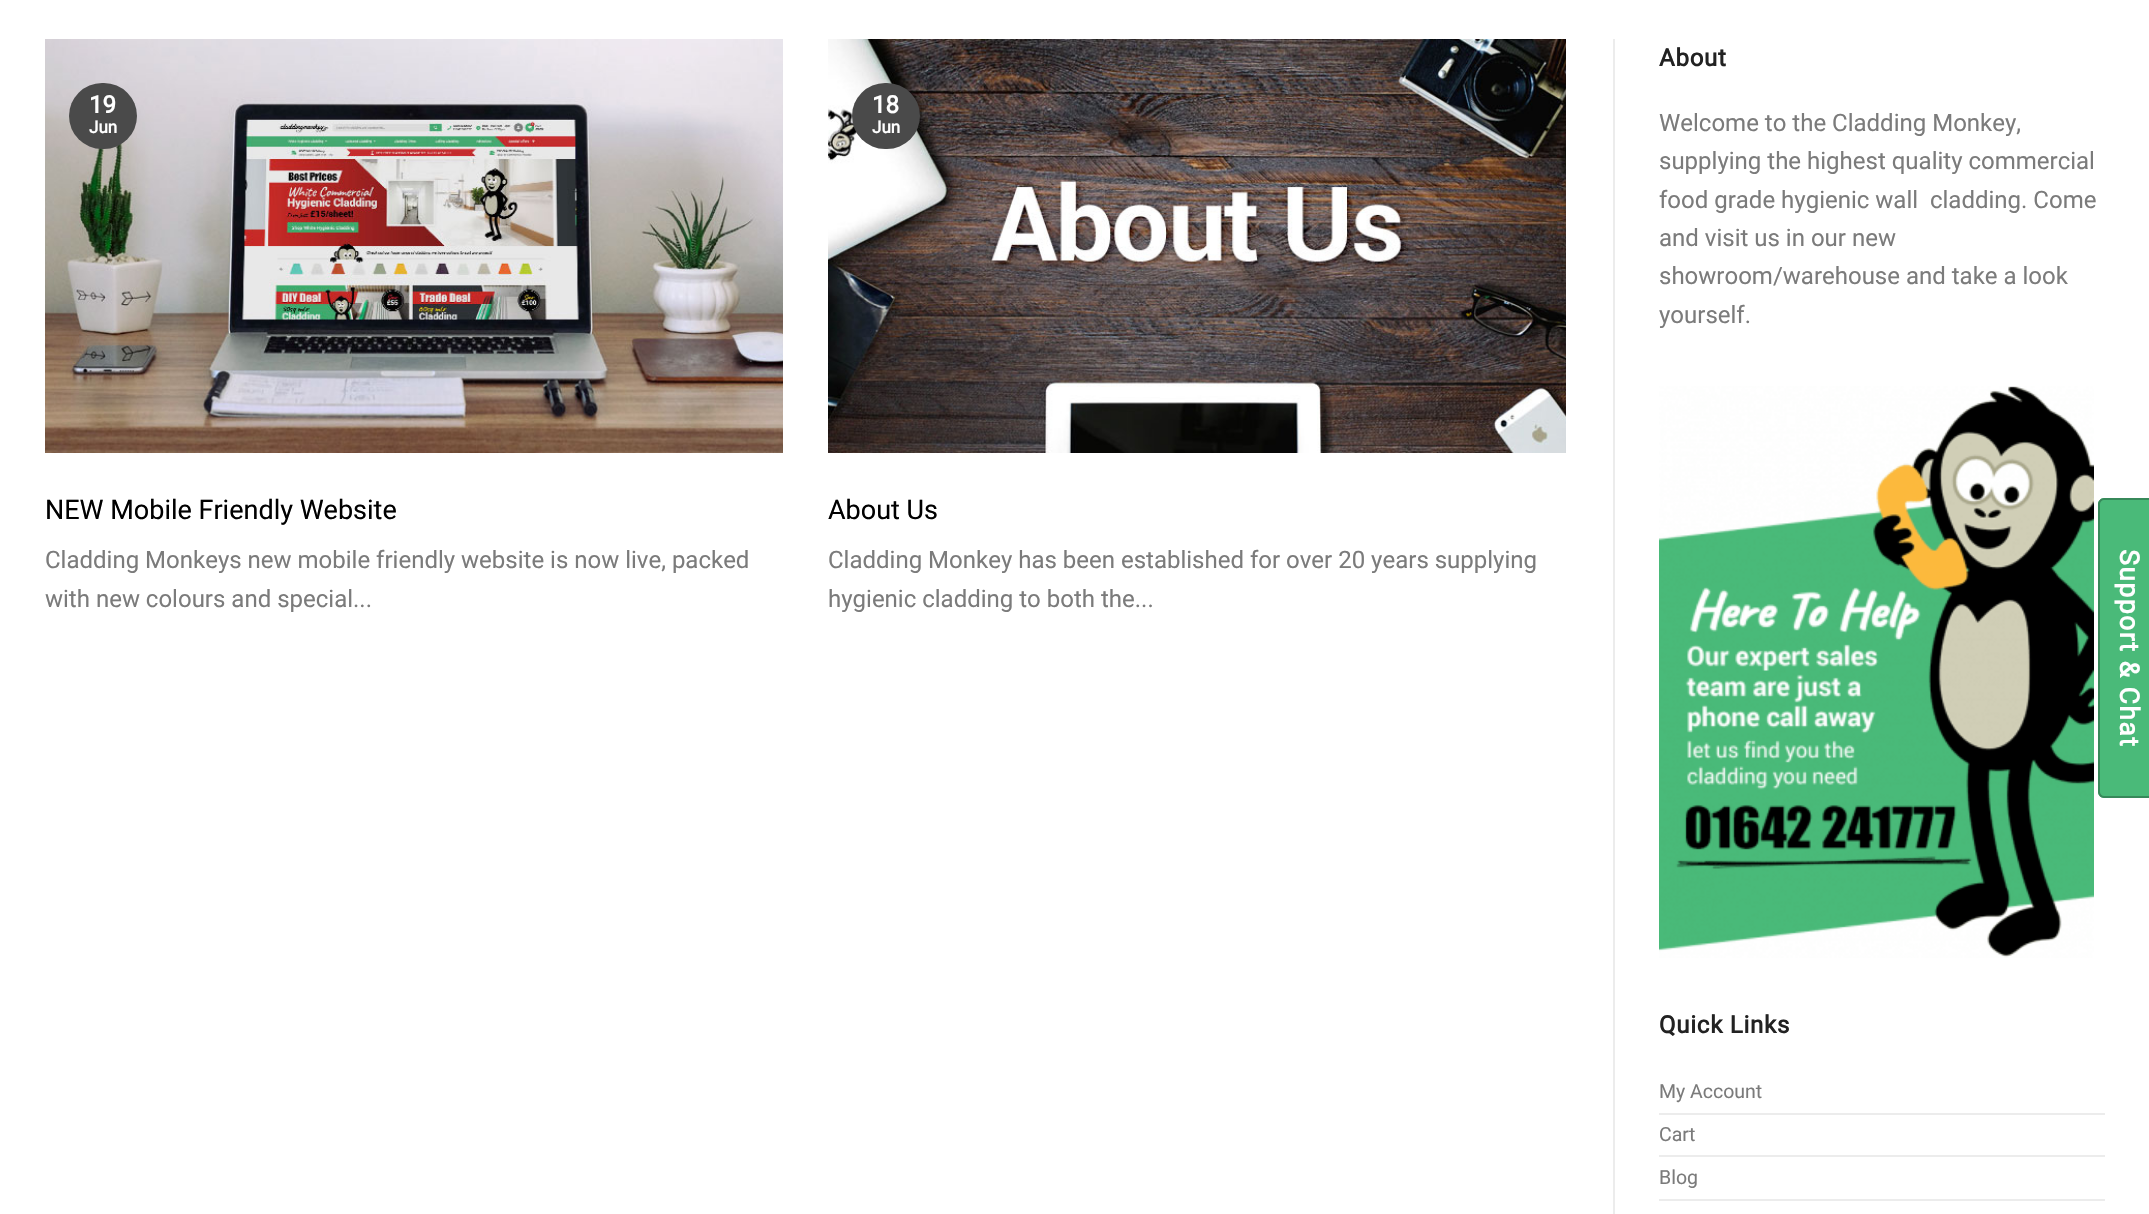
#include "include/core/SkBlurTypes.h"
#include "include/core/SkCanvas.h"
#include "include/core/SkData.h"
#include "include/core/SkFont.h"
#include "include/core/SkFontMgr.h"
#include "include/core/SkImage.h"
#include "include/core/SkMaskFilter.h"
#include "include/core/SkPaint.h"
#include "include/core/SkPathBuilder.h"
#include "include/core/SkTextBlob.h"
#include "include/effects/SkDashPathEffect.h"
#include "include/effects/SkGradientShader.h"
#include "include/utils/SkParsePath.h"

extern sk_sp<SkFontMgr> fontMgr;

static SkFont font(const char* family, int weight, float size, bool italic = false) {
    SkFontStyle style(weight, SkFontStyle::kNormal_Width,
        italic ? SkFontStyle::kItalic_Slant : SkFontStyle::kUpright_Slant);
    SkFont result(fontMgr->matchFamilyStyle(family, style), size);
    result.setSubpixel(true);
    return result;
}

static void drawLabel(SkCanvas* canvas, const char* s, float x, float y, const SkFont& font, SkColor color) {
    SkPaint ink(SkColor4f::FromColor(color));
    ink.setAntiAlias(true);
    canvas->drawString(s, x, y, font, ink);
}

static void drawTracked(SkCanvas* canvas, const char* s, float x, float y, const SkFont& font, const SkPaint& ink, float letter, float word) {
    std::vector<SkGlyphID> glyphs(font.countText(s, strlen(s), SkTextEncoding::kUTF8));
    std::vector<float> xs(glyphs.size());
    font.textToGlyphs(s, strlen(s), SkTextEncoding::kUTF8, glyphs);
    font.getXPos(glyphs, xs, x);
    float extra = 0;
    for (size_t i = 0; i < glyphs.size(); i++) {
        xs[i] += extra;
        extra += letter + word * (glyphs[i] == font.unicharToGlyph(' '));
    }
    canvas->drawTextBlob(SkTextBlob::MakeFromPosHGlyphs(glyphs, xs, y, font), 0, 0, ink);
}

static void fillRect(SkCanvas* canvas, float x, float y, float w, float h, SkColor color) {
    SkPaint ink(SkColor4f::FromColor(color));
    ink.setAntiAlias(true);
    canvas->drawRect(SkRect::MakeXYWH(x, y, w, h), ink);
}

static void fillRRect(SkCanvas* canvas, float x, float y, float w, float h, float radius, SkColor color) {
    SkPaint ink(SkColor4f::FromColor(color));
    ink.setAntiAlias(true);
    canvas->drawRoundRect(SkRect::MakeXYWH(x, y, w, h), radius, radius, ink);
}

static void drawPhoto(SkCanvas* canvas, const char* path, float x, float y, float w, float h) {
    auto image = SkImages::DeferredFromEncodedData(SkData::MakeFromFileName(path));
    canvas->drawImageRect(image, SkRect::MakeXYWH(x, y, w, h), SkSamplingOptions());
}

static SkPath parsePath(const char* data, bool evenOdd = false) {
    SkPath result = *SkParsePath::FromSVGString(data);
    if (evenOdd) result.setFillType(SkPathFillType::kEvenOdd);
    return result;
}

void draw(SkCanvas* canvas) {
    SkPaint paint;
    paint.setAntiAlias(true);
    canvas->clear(0xFFFFFFFF);
    drawPhoto(canvas, "assets/img1.png", 45, 39, 738, 414);
    fillRRect(canvas, 69, 83, 68, 66, 33, 0xFF4A4A4A);
    SkFont font1 = font("Roboto", 700, 24);
    drawLabel(canvas, "19", 89, 113, font1, 0xFFFFFFFF);
    SkFont font2 = font("Roboto", 700, 17);
    drawLabel(canvas, "Jun", 89, 133, font2, 0xFFFFFFFF);
    SkFont font3 = font("Roboto", 400, 27);
    drawLabel(canvas, "NEW Mobile Friendly Website", 45, 519, font3, 0xFF000000);
    SkFont font4 = font("Roboto", 400, 24);
    drawLabel(canvas, "Cladding Monkeys new mobile friendly website is now live, packed", 45, 568, font4, 0xFF7B7B7B);
    drawLabel(canvas, "with new colours and special...", 45, 607, font4, 0xFF7B7B7B);
    drawPhoto(canvas, "assets/img2.png", 828, 39, 738, 414);
    fillRRect(canvas, 852, 83, 68, 66, 33, 0xFF4A4A4A);
    drawLabel(canvas, "18", 872, 113, font1, 0xFFFFFFFF);
    drawLabel(canvas, "Jun", 872, 133, font2, 0xFFFFFFFF);
    drawLabel(canvas, "About Us", 828, 519, font3, 0xFF000000);
    drawLabel(canvas, "Cladding Monkey has been established for over 20 years supplying", 828, 568, font4, 0xFF7B7B7B);
    drawLabel(canvas, "hygienic cladding to both the...", 828, 607, font4, 0xFF7B7B7B);
    fillRect(canvas, 1613, 39, 2, 1175, 0xFFECECEC);
    paint.setColor(0xFF222222);
    drawTracked(canvas, "About", 1659, 66, font1, paint, 0.75f, 0);
    drawLabel(canvas, "Welcome to the Cladding Monkey,", 1659, 131, font4, 0xFF7B7B7B);
    drawLabel(canvas, "supplying the highest quality commercial", 1659, 169, font4, 0xFF7B7B7B);
    drawLabel(canvas, "food grade hygienic wall  cladding. Come", 1659, 208, font4, 0xFF7B7B7B);
    drawLabel(canvas, "and visit us in our new", 1659, 246, font4, 0xFF7B7B7B);
    drawLabel(canvas, "showroom/warehouse and take a look", 1659, 284, font4, 0xFF7B7B7B);
    drawLabel(canvas, "yourself.", 1659, 323, font4, 0xFF7B7B7B);
    drawPhoto(canvas, "assets/img3.png", 1659, 386, 435, 572);
    drawTracked(canvas, "Quick Links", 1659, 1033, font1, paint, 0.75f, 0);
    SkFont font5 = font("Roboto", 400, 19.5f);
    drawLabel(canvas, "My Account", 1659, 1098, font5, 0xFF7B7B7B);
    fillRect(canvas, 1659, 1113, 446, 2, 0xFFECECEC);
    drawLabel(canvas, "Cart", 1659, 1141, font5, 0xFF7B7B7B);
    fillRect(canvas, 1659, 1155, 446, 2, 0xFFECECEC);
    drawLabel(canvas, "Blog", 1659, 1184, font5, 0xFF7B7B7B);
    fillRect(canvas, 1659, 1199, 446, 2, 0xFFECECEC);
    paint.setColor(0xFF4ABA79);
    canvas->drawPath(parsePath("M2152 498V798H2104C2101 798 2098 795 2098 792V504C2098 501 2101 498 2104 498Z"), paint);
    paint.setColor(0xFF37895A);
    canvas->drawPath(parsePath("M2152 498V798H2104C2101 798 2098 795 2098 792V504C2098 501 2101 498 2104 498ZM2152 500V796H2104C2102 796 2100 794 2100 792V504C2100 502 2102 500 2104 500Z", true), paint);
    SkFont font6 = font("Roboto", 700, 26.5f);
    paint.setColor(0xFFFFFFFF);
    canvas->save();
    canvas->rotate(90, 2120, 549);
    drawTracked(canvas, "Support & Chat", 2120, 549, font6, paint, 1.5f, 0);
    canvas->restore();
}
